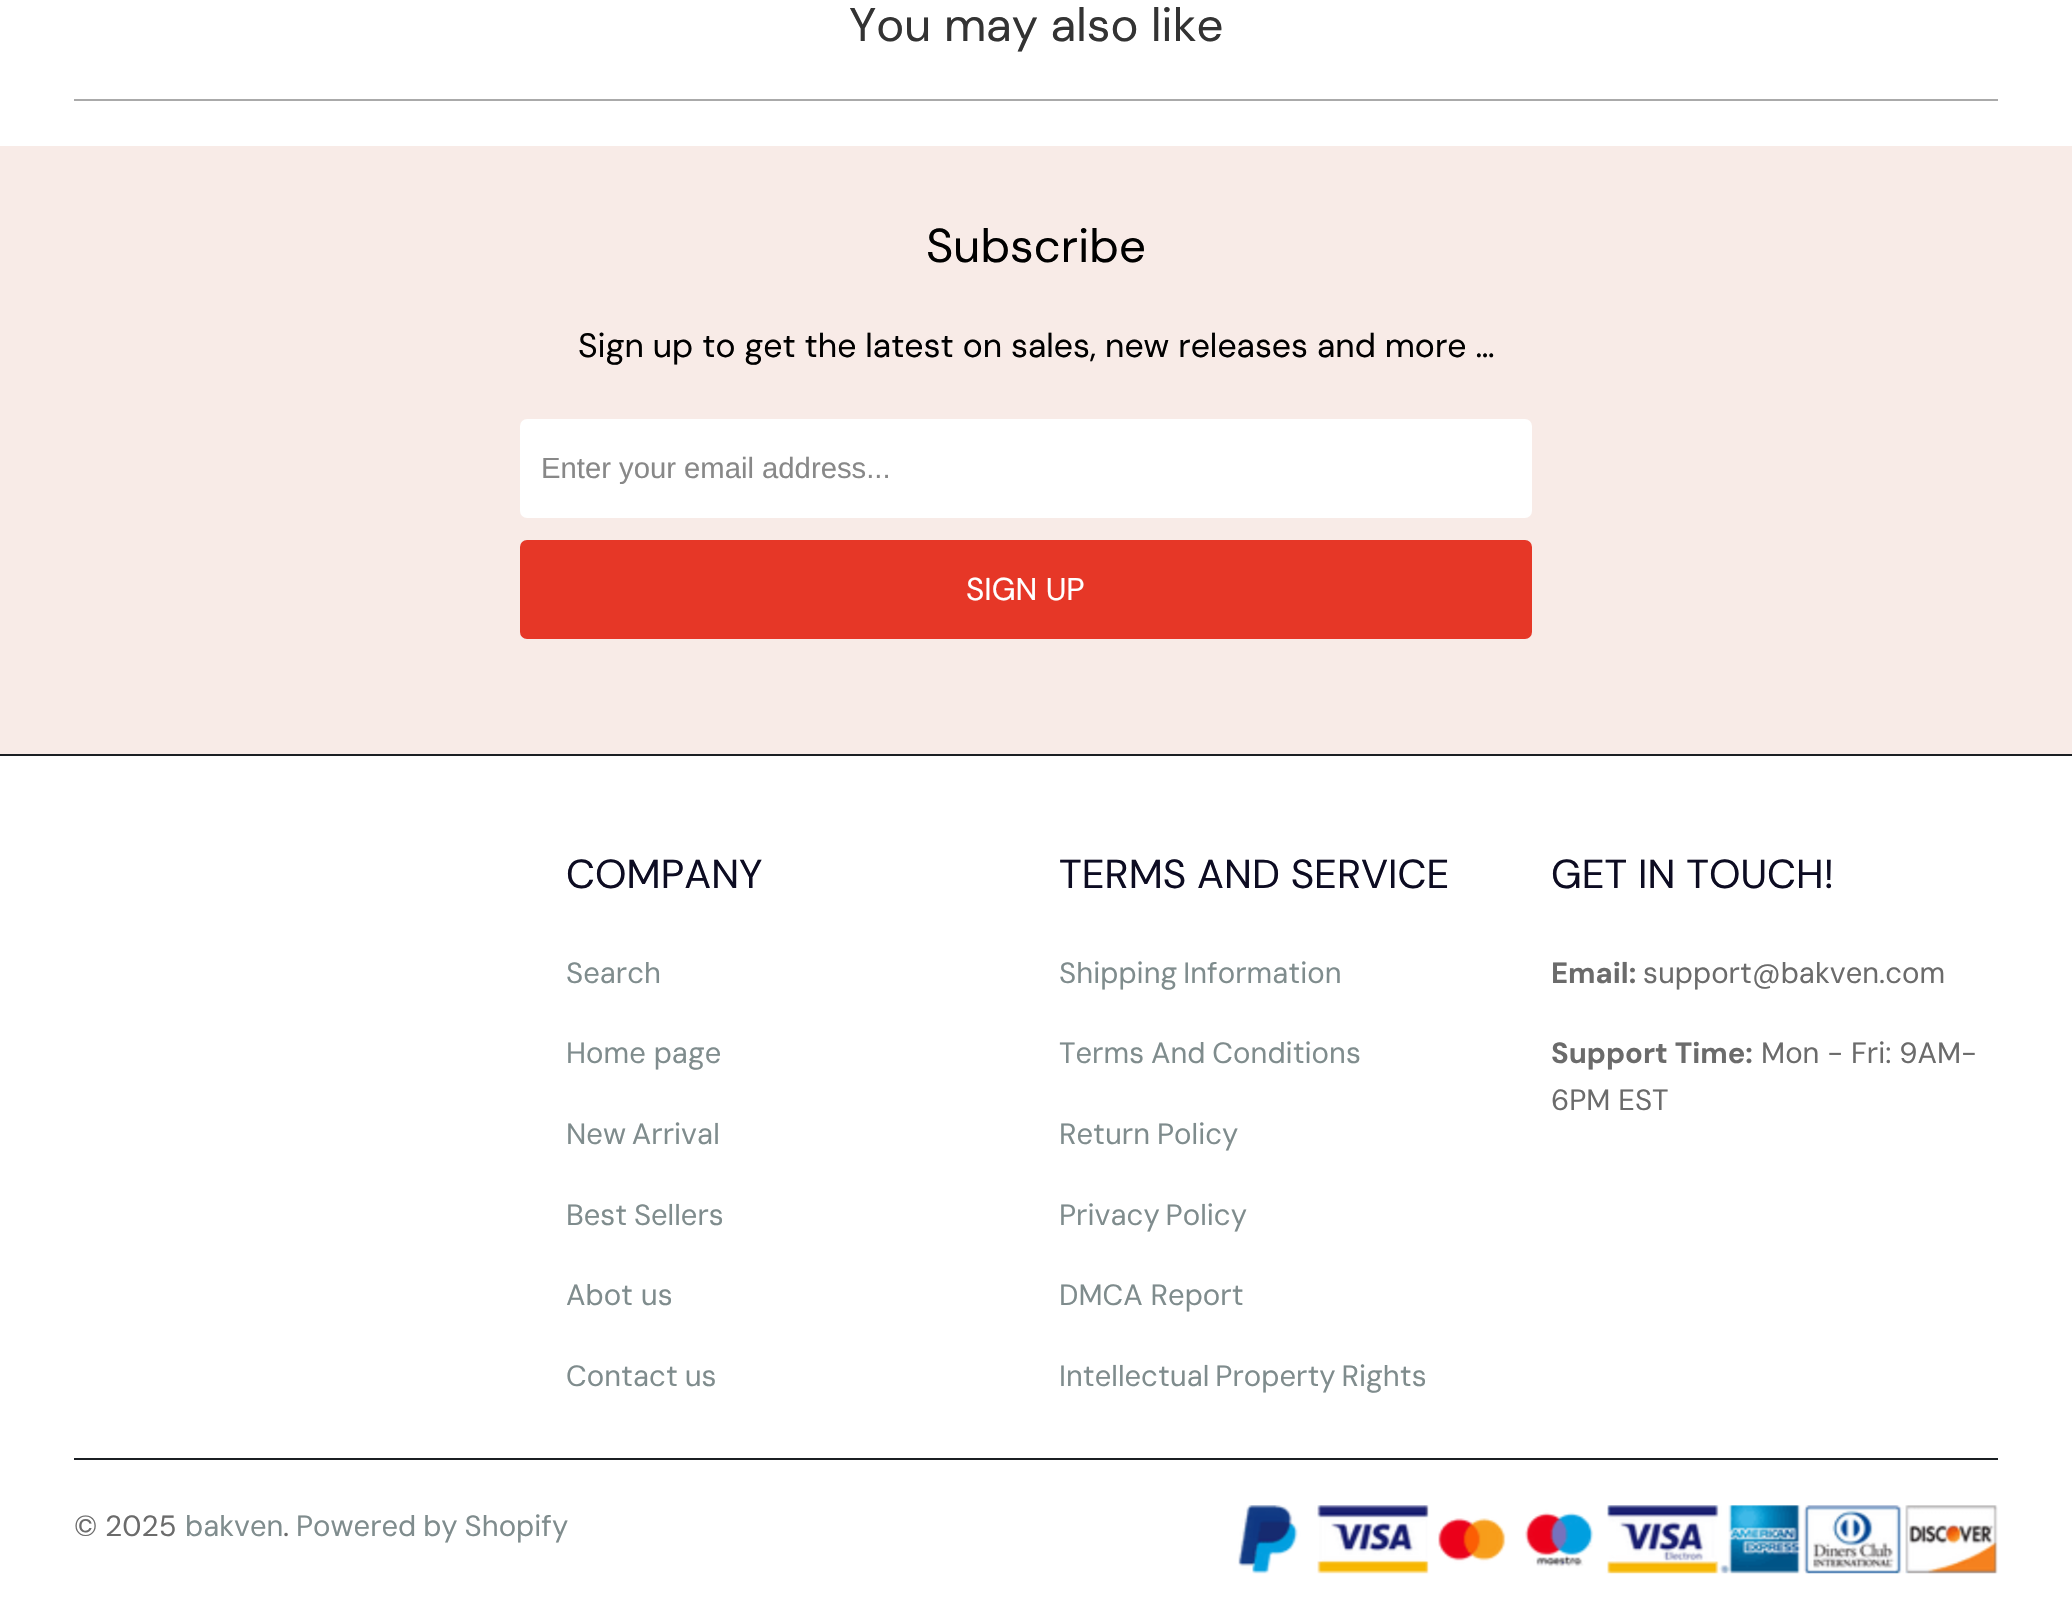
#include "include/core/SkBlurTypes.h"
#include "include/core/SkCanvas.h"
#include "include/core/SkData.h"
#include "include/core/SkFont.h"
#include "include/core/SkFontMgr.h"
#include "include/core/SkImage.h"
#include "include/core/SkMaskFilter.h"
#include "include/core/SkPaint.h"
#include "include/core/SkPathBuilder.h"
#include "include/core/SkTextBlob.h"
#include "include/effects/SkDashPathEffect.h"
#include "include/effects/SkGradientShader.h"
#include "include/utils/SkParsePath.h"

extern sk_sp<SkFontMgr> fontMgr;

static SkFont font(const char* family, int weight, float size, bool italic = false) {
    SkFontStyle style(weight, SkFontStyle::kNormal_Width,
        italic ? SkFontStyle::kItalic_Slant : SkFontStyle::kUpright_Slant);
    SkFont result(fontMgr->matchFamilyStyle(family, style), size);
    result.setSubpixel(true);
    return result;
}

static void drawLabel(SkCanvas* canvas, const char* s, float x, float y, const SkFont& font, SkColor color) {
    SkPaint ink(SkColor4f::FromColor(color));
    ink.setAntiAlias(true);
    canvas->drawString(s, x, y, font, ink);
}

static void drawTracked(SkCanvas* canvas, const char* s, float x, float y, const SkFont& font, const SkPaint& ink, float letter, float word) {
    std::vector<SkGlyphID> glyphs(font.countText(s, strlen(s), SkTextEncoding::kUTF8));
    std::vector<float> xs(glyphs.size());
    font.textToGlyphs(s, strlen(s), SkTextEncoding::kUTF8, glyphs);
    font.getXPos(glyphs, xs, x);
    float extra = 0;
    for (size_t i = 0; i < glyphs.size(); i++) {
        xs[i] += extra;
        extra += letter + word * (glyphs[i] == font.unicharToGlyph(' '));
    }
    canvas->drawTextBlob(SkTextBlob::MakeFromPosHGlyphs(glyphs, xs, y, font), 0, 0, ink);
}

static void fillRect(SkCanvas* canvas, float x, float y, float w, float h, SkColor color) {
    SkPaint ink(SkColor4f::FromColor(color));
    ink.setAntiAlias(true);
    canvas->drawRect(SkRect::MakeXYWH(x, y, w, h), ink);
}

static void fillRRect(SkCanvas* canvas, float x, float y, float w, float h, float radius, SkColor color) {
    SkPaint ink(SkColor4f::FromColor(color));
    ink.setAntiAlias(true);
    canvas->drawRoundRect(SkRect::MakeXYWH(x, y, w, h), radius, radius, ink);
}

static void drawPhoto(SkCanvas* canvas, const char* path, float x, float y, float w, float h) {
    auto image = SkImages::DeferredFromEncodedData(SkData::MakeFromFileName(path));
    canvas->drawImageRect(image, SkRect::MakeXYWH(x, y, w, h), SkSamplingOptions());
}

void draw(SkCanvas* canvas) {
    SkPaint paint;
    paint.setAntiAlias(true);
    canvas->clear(0xFFFFFFFF);
    SkFont font1 = font("DM Sans", 400, 47.25f);
    drawLabel(canvas, "You may also like", 849, 41, font1, 0xFF333333);
    fillRect(canvas, 74, 99, 1924, 2, 0xFFAAAAAA);
    fillRect(canvas, 0, 146, 2072, 608, 0xFFF8EBE7);
    drawLabel(canvas, "Subscribe", 926, 262, font1, 0xFF000000);
    SkFont font2 = font("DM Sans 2", 400, 33.75f);
    drawLabel(canvas, "Sign up to get the latest on sales, new releases and more …", 578, 357, font2, 0xFF000000);
    fillRRect(canvas, 520, 419, 1012, 99, 7, 0xFFFFFFFF);
    SkFont font3 = font("Liberation Sans", 400, 29.25f);
    drawLabel(canvas, "Enter your email address...", 541, 478, font3, 0xFF888888);
    paint.setColor(0xFFE63727);
    canvas->drawRoundRect(SkRect::MakeXYWH(521, 541, 1010, 97), 6, 6, paint);
    paint.setStroke(true);
    paint.setStrokeWidth(2);
    canvas->drawRoundRect(SkRect::MakeXYWH(521, 541, 1010, 97), 6, 6, paint);
    SkFont font4 = font("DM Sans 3", 400, 31.5f);
    drawLabel(canvas, "SIGN UP", 966, 600, font4, 0xFFFFFFFF);
    fillRect(canvas, 0, 754, 2072, 2, 0xFF1B1F23);
    SkFont font5 = font("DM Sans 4", 400, 40.5f);
    drawLabel(canvas, "COMPANY", 566, 888, font5, 0xFF0D0C22);
    SkFont font6 = font("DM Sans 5", 400, 29.25f);
    drawLabel(canvas, "Search", 566, 983, font6, 0xFF7F8C8D);
    drawLabel(canvas, "Home page", 566, 1063, font6, 0xFF7F8C8D);
    paint.setStroke(false);
    paint.setColor(0xFF7F8C8D);
    drawTracked(canvas, "New Arrival", 566, 1144, font6, paint, 0, -2);
    drawTracked(canvas, "Best Sellers", 566, 1225, font6, paint, 0, -1);
    drawLabel(canvas, "Abot us", 566, 1305, font6, 0xFF7F8C8D);
    drawTracked(canvas, "Contact us", 566, 1386, font6, paint, 0, -1);
    drawLabel(canvas, "TERMS AND SERVICE", 1059, 888, font5, 0xFF0D0C22);
    drawTracked(canvas, "Shipping Information", 1059, 983, font6, paint, 0, -2);
    drawTracked(canvas, "Terms And Conditions", 1059, 1063, font6, paint, 0, -1);
    drawTracked(canvas, "Return Policy", 1059, 1144, font6, paint, 0, -1);
    drawTracked(canvas, "Privacy Policy", 1059, 1225, font6, paint, 0, -2);
    drawLabel(canvas, "DMCA Report", 1059, 1305, font6, 0xFF7F8C8D);
    drawTracked(canvas, "Intellectual Property Rights", 1059, 1386, font6, paint, 0, -2);
    drawLabel(canvas, "GET IN TOUCH!", 1551, 888, font5, 0xFF0D0C22);
    SkFont font7 = font("DM Sans", 700, 29.25f);
    drawLabel(canvas, "Email:", 1551, 983, font7, 0xFF6B6B6B);
    drawLabel(canvas, "support@bakven.com", 1643, 983, font6, 0xFF6B6B6B);
    drawLabel(canvas, "Support Time:", 1551, 1063, font7, 0xFF6B6B6B);
    drawLabel(canvas, "Mon - Fri: 9AM-", 1761, 1063, font6, 0xFF6B6B6B);
    drawLabel(canvas, "6PM EST", 1551, 1110, font6, 0xFF6B6B6B);
    fillRect(canvas, 74, 1458, 1924, 2, 0xFF1B1F23);
    drawLabel(canvas, "© 2025", 74, 1536, font6, 0xFF6B6B6B);
    drawLabel(canvas, "bakven", 185, 1536, font6, 0xFF7F8C8D);
    drawLabel(canvas, ".", 283, 1536, font6, 0xFF6B6B6B);
    drawTracked(canvas, "Powered by Shopify", 296, 1536, font6, paint, 0, -1);
    drawPhoto(canvas, "assets/img1.png", 1238, 1505, 760, 69);
}
